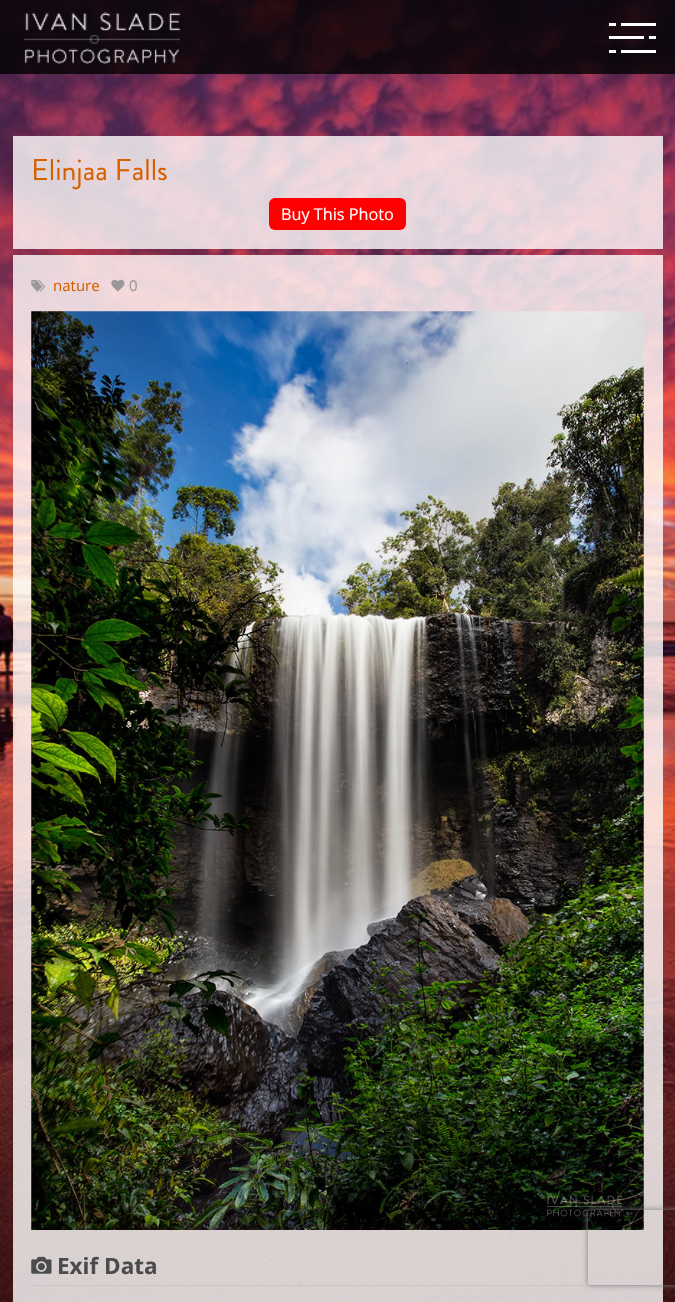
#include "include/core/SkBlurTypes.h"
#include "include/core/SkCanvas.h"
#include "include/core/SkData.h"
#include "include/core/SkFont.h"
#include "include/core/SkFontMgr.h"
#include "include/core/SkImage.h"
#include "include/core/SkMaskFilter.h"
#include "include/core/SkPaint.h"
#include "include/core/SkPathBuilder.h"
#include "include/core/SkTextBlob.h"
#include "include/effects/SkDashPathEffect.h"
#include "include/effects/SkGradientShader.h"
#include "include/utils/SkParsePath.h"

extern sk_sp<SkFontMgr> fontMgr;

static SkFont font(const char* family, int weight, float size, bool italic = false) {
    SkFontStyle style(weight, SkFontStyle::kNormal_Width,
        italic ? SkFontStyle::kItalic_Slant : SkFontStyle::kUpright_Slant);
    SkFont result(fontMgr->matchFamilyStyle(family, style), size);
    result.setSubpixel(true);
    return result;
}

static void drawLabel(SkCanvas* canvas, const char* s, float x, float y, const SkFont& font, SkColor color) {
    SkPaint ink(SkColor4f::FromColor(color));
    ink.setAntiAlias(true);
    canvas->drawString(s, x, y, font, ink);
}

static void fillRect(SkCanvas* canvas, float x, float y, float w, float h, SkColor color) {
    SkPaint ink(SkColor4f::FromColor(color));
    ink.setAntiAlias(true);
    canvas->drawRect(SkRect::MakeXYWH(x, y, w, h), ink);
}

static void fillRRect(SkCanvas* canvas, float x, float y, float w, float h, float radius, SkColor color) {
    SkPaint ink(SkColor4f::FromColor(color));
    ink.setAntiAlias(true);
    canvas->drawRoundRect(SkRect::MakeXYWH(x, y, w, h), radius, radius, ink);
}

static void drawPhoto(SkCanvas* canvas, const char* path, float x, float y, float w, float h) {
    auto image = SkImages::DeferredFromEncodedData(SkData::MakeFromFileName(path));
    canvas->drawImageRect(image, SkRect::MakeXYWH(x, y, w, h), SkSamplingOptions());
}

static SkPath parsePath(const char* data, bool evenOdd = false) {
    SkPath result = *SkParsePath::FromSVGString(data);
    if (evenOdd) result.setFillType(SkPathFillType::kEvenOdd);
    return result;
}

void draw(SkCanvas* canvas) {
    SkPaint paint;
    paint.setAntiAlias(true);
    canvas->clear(0xFFFFFFFF);
    drawPhoto(canvas, "assets/img2.png", 0, 1301, 675, 1);
    drawPhoto(canvas, "assets/img1.png", 0, 0, 675, 1302);
    fillRect(canvas, 0, 0, 675, 74, 0xCC000000);
    drawPhoto(canvas, "assets/img3.png", 23, 12, 158, 52);
    fillRect(canvas, 621, 23, 35, 3, 0xFFFFFFFF);
    fillRect(canvas, 609, 23, 7, 3, 0xFFFFFFFF);
    fillRect(canvas, 609, 36, 35, 3, 0xFFFFFFFF);
    fillRect(canvas, 649, 36, 7, 3, 0xFFFFFFFF);
    fillRect(canvas, 621, 50, 35, 3, 0xFFFFFFFF);
    fillRect(canvas, 609, 50, 7, 3, 0xFFFFFFFF);
    fillRect(canvas, 13, 136, 650, 113, 0xCCFFFFFF);
    SkFont font1 = font("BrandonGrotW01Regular", 400, 30);
    drawLabel(canvas, "Elinjaa Falls", 31, 180, font1, 0xFFD66000);
    fillRRect(canvas, 269, 198, 137, 32, 6, 0xFFFF0000);
    SkFont font2 = font("Open Sans", 400, 16.25f);
    drawLabel(canvas, "Buy This Photo", 281, 220, font2, 0xFFFFFFFF);
    fillRect(canvas, 13, 255, 650, 1047, 0xCCFFFFFF);
    drawPhoto(canvas, "assets/img4.png", 31, 280, 14, 12);
    SkFont font3 = font("Open Sans", 400, 15);
    drawLabel(canvas, "nature", 53, 291, font3, 0xFFD66000);
    drawPhoto(canvas, "assets/img5.png", 111, 279, 14, 13);
    drawLabel(canvas, "0", 129, 291, font3, 0xFF999999);
    drawPhoto(canvas, "assets/img6.png", 31, 311, 613, 919);
    fillRect(canvas, 31, 1285, 613, 1, 0xFFC6C6C6);
    drawPhoto(canvas, "assets/img7.png", 31, 1256, 21, 18);
    SkFont font4 = font("Open Sans", 700, 22.5f);
    drawLabel(canvas, "Exif Data", 57, 1274, font4, 0xFF4B4B4B);
    canvas->save();
    canvas->clipPath(parsePath("M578 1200H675V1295H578ZM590.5 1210H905.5C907 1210 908 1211 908 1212.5V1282.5C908 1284 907 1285 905.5 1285H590.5C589 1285 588 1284 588 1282.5V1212.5C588 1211 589 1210 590.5 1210Z", true), true);
    paint.setColor(0xFF808080);
    paint.setMaskFilter(SkMaskFilter::MakeBlur(kNormal_SkBlurStyle, 3));
    canvas->drawRoundRect(SkRect::MakeXYWH(588, 1210, 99, 75), 2.5f, 2.5f, paint);
    paint.setMaskFilter(nullptr);
    canvas->restore();
}
